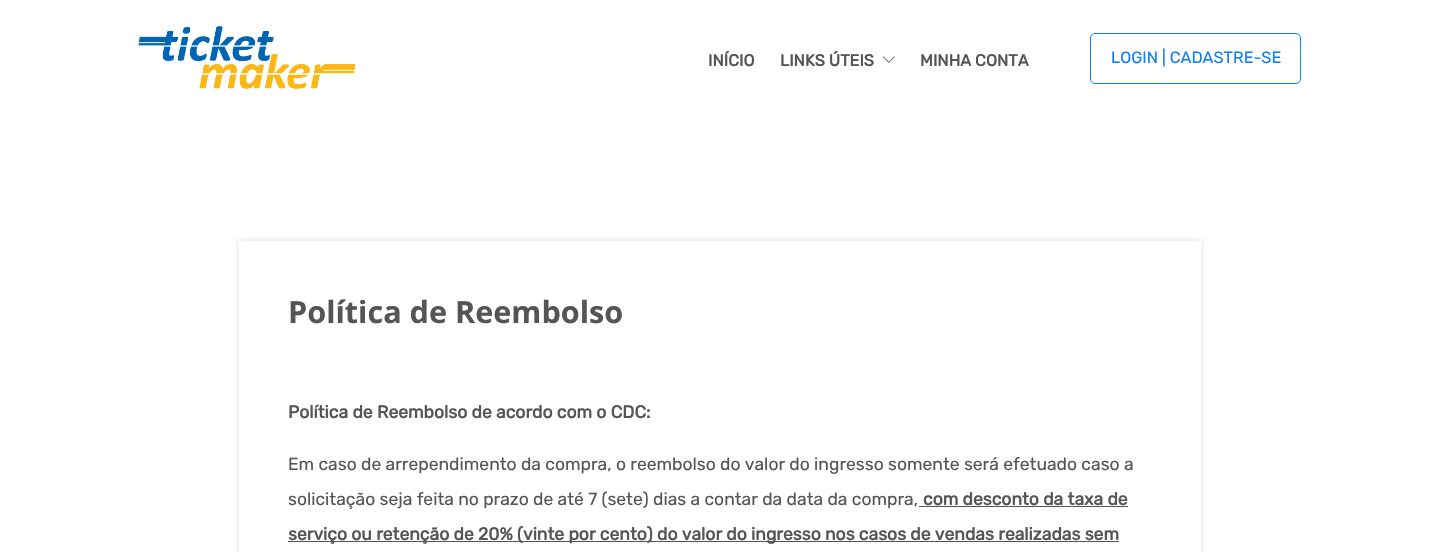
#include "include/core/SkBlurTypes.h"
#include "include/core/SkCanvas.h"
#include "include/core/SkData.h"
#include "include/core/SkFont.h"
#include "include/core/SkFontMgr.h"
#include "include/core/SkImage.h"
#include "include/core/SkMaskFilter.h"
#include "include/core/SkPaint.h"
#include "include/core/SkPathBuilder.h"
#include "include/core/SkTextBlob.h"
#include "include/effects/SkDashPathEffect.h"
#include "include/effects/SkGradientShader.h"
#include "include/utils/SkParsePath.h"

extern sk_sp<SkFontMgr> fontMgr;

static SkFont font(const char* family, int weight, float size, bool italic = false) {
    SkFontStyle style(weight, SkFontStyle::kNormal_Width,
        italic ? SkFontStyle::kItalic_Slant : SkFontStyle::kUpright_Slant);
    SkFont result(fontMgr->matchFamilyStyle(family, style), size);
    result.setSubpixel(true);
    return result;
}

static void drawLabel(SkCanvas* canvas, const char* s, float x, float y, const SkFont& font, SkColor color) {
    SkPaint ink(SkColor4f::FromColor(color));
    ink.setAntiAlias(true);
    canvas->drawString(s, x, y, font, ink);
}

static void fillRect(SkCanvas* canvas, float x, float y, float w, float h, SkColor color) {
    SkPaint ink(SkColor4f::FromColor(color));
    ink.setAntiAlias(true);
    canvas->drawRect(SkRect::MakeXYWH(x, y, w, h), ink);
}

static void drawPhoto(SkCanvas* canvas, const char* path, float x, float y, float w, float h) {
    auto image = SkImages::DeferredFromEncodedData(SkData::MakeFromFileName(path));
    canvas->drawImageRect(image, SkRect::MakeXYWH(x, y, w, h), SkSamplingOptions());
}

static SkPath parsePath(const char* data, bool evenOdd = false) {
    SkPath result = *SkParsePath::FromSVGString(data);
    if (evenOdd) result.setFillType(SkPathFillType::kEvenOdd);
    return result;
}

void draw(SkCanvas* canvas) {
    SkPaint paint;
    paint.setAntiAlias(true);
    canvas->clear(0xFFFFFFFF);
    drawPhoto(canvas, "assets/img1.png", 138, 26, 218, 63);
    SkFont font1 = font("Rubik", 700, 16.25f);
    drawLabel(canvas, "INÍCIO", 708, 66, font1, 0xFF555555);
    drawLabel(canvas, "LINKS ÚTEIS", 780, 66, font1, 0xFF555555);
    drawPhoto(canvas, "assets/img2.png", 882, 56, 13, 7);
    drawLabel(canvas, "MINHA CONTA", 920, 66, font1, 0xFF555555);
    paint.setStroke(true);
    paint.setStrokeWidth(1);
    paint.setColor(0xFF107EF4);
    canvas->drawRoundRect(SkRect::MakeXYWH(1090.5f, 33.5f, 210, 50), 4.5f, 4.5f, paint);
    SkFont font2 = font("Rubik", 300, 16.25f);
    drawLabel(canvas, "LOGIN | CADASTRE-SE", 1111, 63, font2, 0xFF107EF4);
    canvas->save();
    canvas->clipPath(parsePath("M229 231H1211V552H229ZM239 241H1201V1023H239Z", true), true);
    paint.setStroke(false);
    paint.setColor(0xFFDDDDDD);
    paint.setMaskFilter(SkMaskFilter::MakeBlur(kNormal_SkBlurStyle, 3));
    canvas->drawRect(SkRect::MakeXYWH(239, 241, 962, 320), paint);
    paint.setMaskFilter(nullptr);
    canvas->restore();
    SkFont font3 = font("Open Sans", 700, 30.6f);
    drawLabel(canvas, "Política de Reembolso", 288, 323, font3, 0xFF555555);
    SkFont font4 = font("Rubik", 700, 17.5f);
    drawLabel(canvas, "Política de Reembolso de acordo com o CDC:", 288, 418, font4, 0xFF555555);
    SkFont font5 = font("Rubik", 300, 17.5f);
    drawLabel(canvas, "Em caso de arrependimento da compra, o reembolso do valor do ingresso somente será efetuado caso a", 288, 470, font5, 0xFF555555);
    drawLabel(canvas, "solicitação seja feita no prazo de até 7 (sete) dias a contar da data da compra,", 288, 505, font5, 0xFF555555);
    drawLabel(canvas, "com desconto da taxa de", 923, 505, font4, 0xFF555555);
    fillRect(canvas, 919, 506, 209, 1, 0xFF555555);
    fillRect(canvas, 288, 541, 831, 1, 0xFF555555);
    drawLabel(canvas, "serviço ou retenção de 20% (vinte por cento) do valor do ingresso nos casos de vendas realizadas sem", 288, 540, font4, 0xFF555555);
}
